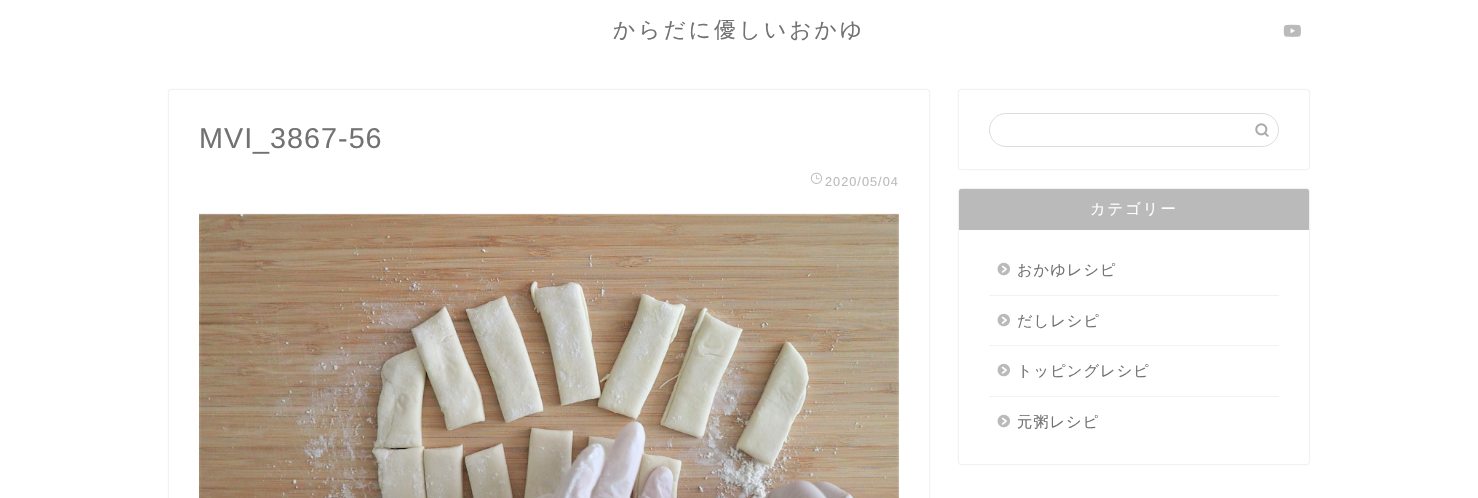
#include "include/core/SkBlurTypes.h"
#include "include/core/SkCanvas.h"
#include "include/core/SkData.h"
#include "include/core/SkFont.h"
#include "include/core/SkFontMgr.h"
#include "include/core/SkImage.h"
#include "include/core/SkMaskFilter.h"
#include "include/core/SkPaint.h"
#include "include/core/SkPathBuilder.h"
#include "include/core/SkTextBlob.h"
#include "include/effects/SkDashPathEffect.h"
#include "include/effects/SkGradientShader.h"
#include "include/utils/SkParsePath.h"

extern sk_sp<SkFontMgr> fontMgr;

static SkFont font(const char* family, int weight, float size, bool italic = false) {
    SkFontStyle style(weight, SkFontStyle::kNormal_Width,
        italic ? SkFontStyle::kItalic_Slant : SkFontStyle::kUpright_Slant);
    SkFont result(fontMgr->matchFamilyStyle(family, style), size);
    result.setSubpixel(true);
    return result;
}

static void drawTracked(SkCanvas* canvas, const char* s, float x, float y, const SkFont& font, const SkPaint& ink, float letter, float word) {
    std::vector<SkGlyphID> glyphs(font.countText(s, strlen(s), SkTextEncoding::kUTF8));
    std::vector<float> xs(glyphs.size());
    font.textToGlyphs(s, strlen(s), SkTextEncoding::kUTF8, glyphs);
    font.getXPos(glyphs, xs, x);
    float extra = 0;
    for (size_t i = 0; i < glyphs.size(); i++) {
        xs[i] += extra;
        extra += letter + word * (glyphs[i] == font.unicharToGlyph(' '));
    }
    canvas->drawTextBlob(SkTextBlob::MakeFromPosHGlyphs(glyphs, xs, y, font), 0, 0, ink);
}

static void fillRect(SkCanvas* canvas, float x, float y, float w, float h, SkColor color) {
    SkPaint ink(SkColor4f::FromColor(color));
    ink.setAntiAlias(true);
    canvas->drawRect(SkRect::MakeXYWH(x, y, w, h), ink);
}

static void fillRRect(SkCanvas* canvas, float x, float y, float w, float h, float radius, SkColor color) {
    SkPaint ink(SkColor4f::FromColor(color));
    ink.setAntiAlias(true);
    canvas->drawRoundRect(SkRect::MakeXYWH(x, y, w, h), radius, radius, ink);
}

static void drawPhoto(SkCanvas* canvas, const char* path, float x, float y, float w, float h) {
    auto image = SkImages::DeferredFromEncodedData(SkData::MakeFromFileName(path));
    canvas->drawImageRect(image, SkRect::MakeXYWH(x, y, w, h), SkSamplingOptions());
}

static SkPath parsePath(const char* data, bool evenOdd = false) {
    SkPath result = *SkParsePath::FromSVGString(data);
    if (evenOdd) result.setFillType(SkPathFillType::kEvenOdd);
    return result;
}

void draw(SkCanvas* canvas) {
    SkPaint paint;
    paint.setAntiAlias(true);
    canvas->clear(0xFFFFFFFF);
    SkFont font1 = font("WenQuanYi Zen Hei", 500, 21.75f);
    paint.setColor(0xFF727272);
    drawTracked(canvas, "からだに優しいおかゆ", 613, 37, font1, paint, 3, 0);
    drawPhoto(canvas, "assets/img1.png", 1283, 24, 18, 13);
    paint.setColor(0x2E000000);
    paint.setMaskFilter(SkMaskFilter::MakeBlur(kNormal_SkBlurStyle, 1));
    canvas->drawRoundRect(SkRect::MakeXYWH(169, 90, 760, 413), 2, 2, paint);
    paint.setMaskFilter(nullptr);
    fillRRect(canvas, 169, 90, 760, 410, 2, 0xFFFFFFFF);
    SkFont font2 = font("Liberation Sans", 400, 28.75f);
    paint.setColor(0xFF727272);
    drawTracked(canvas, "MVI_3867-56", 199, 148, font2, paint, 1, 0);
    drawPhoto(canvas, "assets/img2.png", 810, 172, 13, 12);
    SkFont font3 = font("Liberation Sans", 400, 12.75f);
    paint.setColor(0xFFBBBBBB);
    drawTracked(canvas, "2020/05/04", 825, 186, font3, paint, 1, 0);
    drawPhoto(canvas, "assets/img3.png", 199, 213, 700, 285);
    paint.setColor(0x2E000000);
    paint.setMaskFilter(SkMaskFilter::MakeBlur(kNormal_SkBlurStyle, 1));
    canvas->drawRoundRect(SkRect::MakeXYWH(959, 90, 350, 79), 2, 2, paint);
    paint.setMaskFilter(nullptr);
    fillRRect(canvas, 959, 90, 350, 79, 2, 0xFFFFFFFF);
    paint.setStroke(true);
    paint.setStrokeWidth(1);
    paint.setColor(0xFFDDDDDD);
    canvas->drawRoundRect(SkRect::MakeXYWH(989.5f, 113.5f, 289, 33), 16.5f, 16.5f, paint);
    drawPhoto(canvas, "assets/img4.png", 1255, 123, 14, 14);
    paint.setStroke(false);
    paint.setColor(0x2E000000);
    paint.setMaskFilter(SkMaskFilter::MakeBlur(kNormal_SkBlurStyle, 1));
    canvas->drawRoundRect(SkRect::MakeXYWH(959, 189, 350, 275), 2, 2, paint);
    paint.setMaskFilter(nullptr);
    fillRRect(canvas, 959, 189, 350, 275, 2, 0xFFFFFFFF);
    paint.setColor(0xFFBABABA);
    canvas->drawPath(parsePath("M961 189H1307C1308 189 1309 190 1309 191V230H959V191C959 190 960 189 961 189Z"), paint);
    SkFont font4 = font("WenQuanYi Zen Hei", 500, 15.25f);
    paint.setColor(0xFFFFFFFF);
    drawTracked(canvas, "カテゴリー", 1090, 214, font4, paint, 2, 0);
    fillRect(canvas, 989, 295, 290, 1, 0xFFF2F2F2);
    drawPhoto(canvas, "assets/img5.png", 997, 262, 13, 14);
    paint.setColor(0xFF727272);
    drawTracked(canvas, "おかゆレシピ", 1017, 275, font4, paint, 1, 0);
    fillRect(canvas, 989, 345, 290, 1, 0xFFF2F2F2);
    drawPhoto(canvas, "assets/img5.png", 997, 313, 13, 14);
    drawTracked(canvas, "だしレシピ", 1017, 326, font4, paint, 1, 0);
    fillRect(canvas, 989, 396, 290, 1, 0xFFF2F2F2);
    drawPhoto(canvas, "assets/img5.png", 997, 363, 13, 14);
    drawTracked(canvas, "トッピングレシピ", 1017, 376, font4, paint, 1, 0);
    drawPhoto(canvas, "assets/img5.png", 997, 414, 13, 14);
    drawTracked(canvas, "元粥レシピ", 1017, 427, font4, paint, 1, 0);
}
